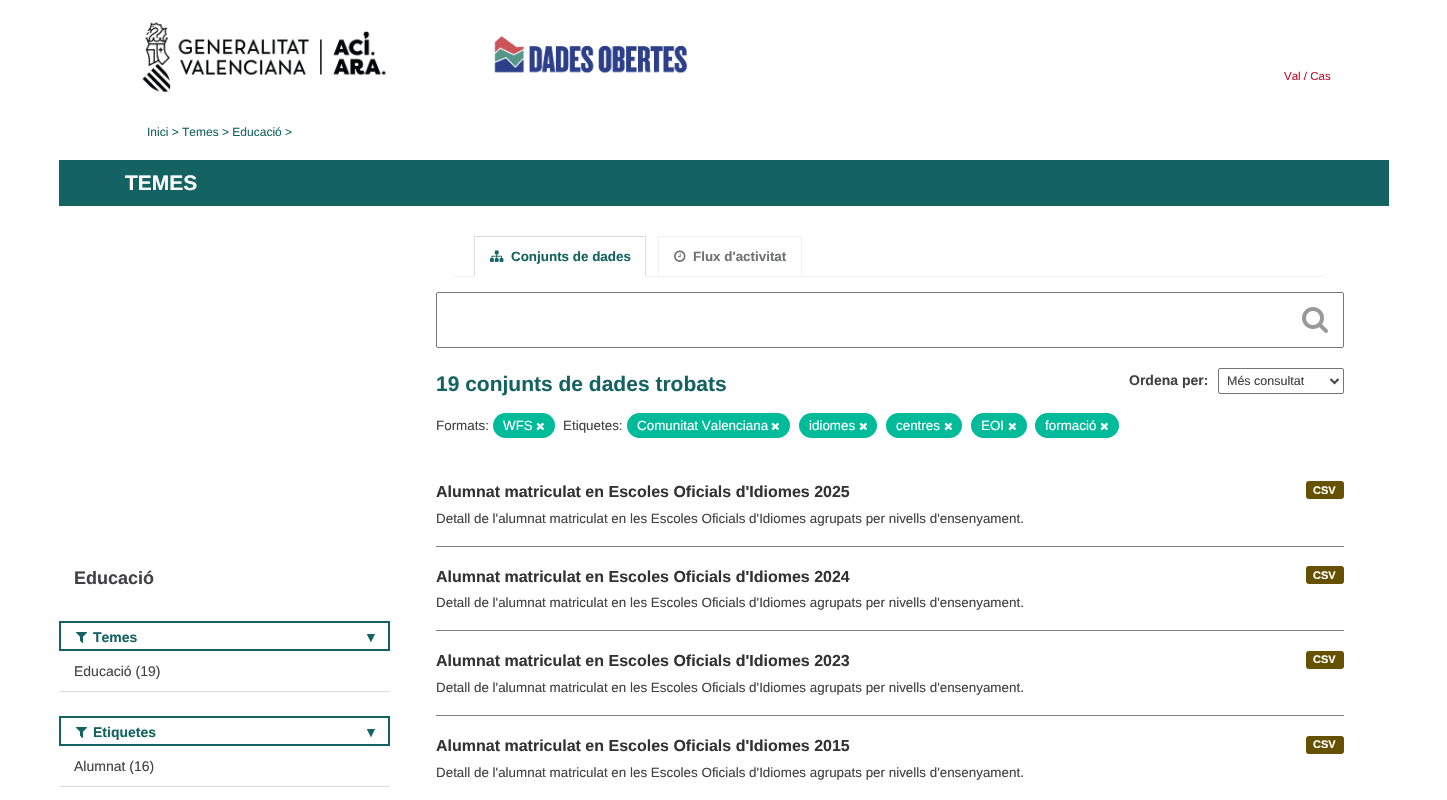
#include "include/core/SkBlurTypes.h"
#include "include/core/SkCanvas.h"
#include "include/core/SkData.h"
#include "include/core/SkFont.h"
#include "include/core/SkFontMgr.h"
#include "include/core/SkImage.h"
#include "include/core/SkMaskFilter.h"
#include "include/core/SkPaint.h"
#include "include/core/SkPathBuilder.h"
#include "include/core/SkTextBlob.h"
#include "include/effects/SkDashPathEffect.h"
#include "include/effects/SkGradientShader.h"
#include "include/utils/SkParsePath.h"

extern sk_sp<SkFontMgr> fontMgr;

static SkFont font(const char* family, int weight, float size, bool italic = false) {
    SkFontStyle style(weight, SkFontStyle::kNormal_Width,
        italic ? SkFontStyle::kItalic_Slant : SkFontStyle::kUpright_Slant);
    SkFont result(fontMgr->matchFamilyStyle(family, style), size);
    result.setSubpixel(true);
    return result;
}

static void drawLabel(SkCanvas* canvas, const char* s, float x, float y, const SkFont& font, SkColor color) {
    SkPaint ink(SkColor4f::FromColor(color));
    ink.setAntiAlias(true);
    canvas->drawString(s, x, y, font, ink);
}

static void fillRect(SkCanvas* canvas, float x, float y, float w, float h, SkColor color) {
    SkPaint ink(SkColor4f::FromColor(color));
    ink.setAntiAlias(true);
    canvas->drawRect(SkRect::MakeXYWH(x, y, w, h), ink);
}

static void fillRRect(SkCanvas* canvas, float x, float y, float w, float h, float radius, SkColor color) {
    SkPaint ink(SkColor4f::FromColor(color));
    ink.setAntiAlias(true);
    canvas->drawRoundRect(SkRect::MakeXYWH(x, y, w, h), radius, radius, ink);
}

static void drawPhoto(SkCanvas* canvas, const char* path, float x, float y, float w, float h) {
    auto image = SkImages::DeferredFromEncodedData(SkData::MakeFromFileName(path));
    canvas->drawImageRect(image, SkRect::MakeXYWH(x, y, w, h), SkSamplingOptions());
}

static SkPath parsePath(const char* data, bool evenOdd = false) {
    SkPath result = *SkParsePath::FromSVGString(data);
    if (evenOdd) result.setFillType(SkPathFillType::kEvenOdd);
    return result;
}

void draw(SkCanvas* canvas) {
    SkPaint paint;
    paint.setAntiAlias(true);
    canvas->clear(0xFFFFFFFF);
    drawPhoto(canvas, "assets/img1.png", 142, 22, 244, 71);
    drawPhoto(canvas, "assets/img2.png", 494, 36, 194, 38);
    SkFont font1 = font("Liberation Sans", 400, 11.5f);
    drawLabel(canvas, "Val / Cas", 1284, 80, font1, 0xFFC70F2D);
    SkFont font2 = font("Liberation Sans", 400, 12);
    drawLabel(canvas, "Inici > Temes > Educació >", 147, 136, font2, 0xFF146362);
    fillRect(canvas, 59, 160, 1330, 46, 0xFF146362);
    SkFont font3 = font("Liberation Sans", 700, 21);
    drawLabel(canvas, "TEMES", 125, 190, font3, 0xFFFFFFFF);
    SkFont font4 = font("Liberation Sans", 700, 18);
    drawLabel(canvas, "Educació", 74, 584, font4, 0xFF414042);
    paint.setStroke(true);
    paint.setStrokeWidth(2);
    paint.setColor(0xFF146362);
    canvas->drawRect(SkRect::MakeXYWH(60, 622, 329, 28), paint);
    SkFont font5 = font("Liberation Sans", 700, 14);
    drawLabel(canvas, "Temes", 93, 642, font5, 0xFF146362);
    drawPhoto(canvas, "assets/img3.png", 76, 632, 11, 11);
    SkFont font6 = font("Liberation Serif", 400, 14);
    drawLabel(canvas, "▼", 364, 642, font6, 0xFF146362);
    SkFont font7 = font("Liberation Sans", 400, 14);
    drawLabel(canvas, "Educació (19)", 74, 676, font7, 0xFF414042);
    fillRect(canvas, 59, 691, 331, 1, 0xFFDDDDDD);
    canvas->drawRect(SkRect::MakeXYWH(60, 717, 329, 28), paint);
    drawLabel(canvas, "Etiquetes", 93, 737, font5, 0xFF146362);
    drawPhoto(canvas, "assets/img3.png", 76, 727, 11, 11);
    drawLabel(canvas, "▼", 364, 737, font6, 0xFF146362);
    fillRect(canvas, 59, 786, 331, 1, 0xFFDDDDDD);
    drawLabel(canvas, "Alumnat (16)", 74, 771, font7, 0xFF414042);
    fillRect(canvas, 454, 276, 871, 1, 0xFFF1F1F1);
    fillRect(canvas, 474, 276, 172, 1, 0xFFFFFFFF);
    fillRect(canvas, 474, 236, 172, 1, 0xFFDDDDDD);
    paint.setStroke(false);
    paint.setColor(0xFFDDDDDD);
    canvas->drawPath(parsePath("M646 236V277L645 276V237Z"), paint);
    canvas->drawPath(parsePath("M474 277V236L475 237V276Z"), paint);
    drawPhoto(canvas, "assets/img4.png", 490, 250, 14, 12);
    SkFont font8 = font("Liberation Sans", 700, 13.4f);
    drawLabel(canvas, "Conjunts de dades", 511, 261, font8, 0xFF146362);
    paint.setStroke(true);
    paint.setStrokeWidth(1);
    paint.setColor(0xFFF1F1F1);
    canvas->drawRect(SkRect::MakeXYWH(658.5f, 236.5f, 143, 40), paint);
    drawPhoto(canvas, "assets/img5.png", 674, 250, 12, 12);
    drawLabel(canvas, "Flux d'activitat", 693, 261, font8, 0xFF707173);
    paint.setColor(0xFF767676);
    canvas->drawRoundRect(SkRect::MakeXYWH(436.5f, 292.5f, 907, 55), 1.5f, 1.5f, paint);
    drawPhoto(canvas, "assets/img6.png", 1302, 307, 26, 26);
    drawLabel(canvas, "19 conjunts de dades trobats", 436, 391, font3, 0xFF146362);
    drawLabel(canvas, "Ordena per:", 1129, 385, font5, 0xFF414042);
    canvas->drawRoundRect(SkRect::MakeXYWH(1218.5f, 368.5f, 125, 25), 1.5f, 1.5f, paint);
    paint.setStrokeWidth(2);
    paint.setColor(0xFF414042);
    canvas->drawPath(parsePath("M1330.5 379L1334.5 383L1338.5 379"), paint);
    SkFont font9 = font("Liberation Sans", 400, 12.5f);
    drawLabel(canvas, "Més consultat", 1227, 385, font9, 0xFF414042);
    SkFont font10 = font("Liberation Sans", 400, 13.4f);
    drawLabel(canvas, "Formats:", 436, 430, font10, 0xFF414042);
    fillRRect(canvas, 493, 413, 62, 25, 12.5f, 0xFF00BB99);
    drawLabel(canvas, "WFS", 503, 430, font10, 0xFFFFFFFF);
    drawPhoto(canvas, "assets/img7.png", 536, 422, 8, 9);
    drawLabel(canvas, "Etiquetes:", 563, 430, font10, 0xFF414042);
    fillRRect(canvas, 627, 413, 163, 25, 12.5f, 0xFF00BB99);
    drawLabel(canvas, "Comunitat Valenciana", 637, 430, font10, 0xFFFFFFFF);
    drawPhoto(canvas, "assets/img7.png", 771, 422, 8, 9);
    fillRRect(canvas, 799, 413, 78, 25, 12.5f, 0xFF00BB99);
    drawLabel(canvas, "idiomes", 809, 430, font10, 0xFFFFFFFF);
    drawPhoto(canvas, "assets/img7.png", 859, 422, 8, 9);
    fillRRect(canvas, 886, 413, 76, 25, 12.5f, 0xFF00BB99);
    drawLabel(canvas, "centres", 896, 430, font10, 0xFFFFFFFF);
    drawPhoto(canvas, "assets/img7.png", 944, 422, 8, 9);
    fillRRect(canvas, 971, 413, 56, 25, 12.5f, 0xFF00BB99);
    drawLabel(canvas, "EOI", 981, 430, font10, 0xFFFFFFFF);
    drawPhoto(canvas, "assets/img7.png", 1008, 422, 8, 9);
    fillRRect(canvas, 1035, 413, 84, 25, 12.5f, 0xFF00BB99);
    drawLabel(canvas, "formació", 1045, 430, font10, 0xFFFFFFFF);
    drawPhoto(canvas, "assets/img7.png", 1100, 422, 8, 9);
    fillRect(canvas, 436, 546, 908, 1, 0xFF808080);
    SkFont font11 = font("Liberation Sans", 700, 16);
    drawLabel(canvas, "Alumnat matriculat en Escoles Oficials d'Idiomes 2025", 436, 497, font11, 0xFF333333);
    fillRRect(canvas, 1306, 481, 38, 18, 3, 0xFF655100);
    SkFont font12 = font("Liberation Sans", 700, 11);
    drawLabel(canvas, "CSV", 1313, 494, font12, 0xFFFFFFFF);
    drawLabel(canvas, "Detall de l'alumnat matriculat en les Escoles Oficials d'Idiomes agrupats per nivells d'ensenyament.", 436, 523, font10, 0xFF414042);
    fillRect(canvas, 436, 630, 908, 1, 0xFF808080);
    drawLabel(canvas, "Alumnat matriculat en Escoles Oficials d'Idiomes 2024", 436, 582, font11, 0xFF333333);
    fillRRect(canvas, 1306, 566, 38, 18, 3, 0xFF655100);
    drawLabel(canvas, "CSV", 1313, 579, font12, 0xFFFFFFFF);
    drawLabel(canvas, "Detall de l'alumnat matriculat en les Escoles Oficials d'Idiomes agrupats per nivells d'ensenyament.", 436, 607, font10, 0xFF414042);
    fillRect(canvas, 436, 715, 908, 1, 0xFF808080);
    drawLabel(canvas, "Alumnat matriculat en Escoles Oficials d'Idiomes 2023", 436, 666, font11, 0xFF333333);
    fillRRect(canvas, 1306, 651, 38, 18, 3, 0xFF655100);
    drawLabel(canvas, "CSV", 1313, 663, font12, 0xFFFFFFFF);
    drawLabel(canvas, "Detall de l'alumnat matriculat en les Escoles Oficials d'Idiomes agrupats per nivells d'ensenyament.", 436, 692, font10, 0xFF414042);
    drawLabel(canvas, "Alumnat matriculat en Escoles Oficials d'Idiomes 2015", 436, 751, font11, 0xFF333333);
    fillRRect(canvas, 1306, 736, 38, 18, 3, 0xFF655100);
    drawLabel(canvas, "CSV", 1313, 748, font12, 0xFFFFFFFF);
    drawLabel(canvas, "Detall de l'alumnat matriculat en les Escoles Oficials d'Idiomes agrupats per nivells d'ensenyament.", 436, 777, font10, 0xFF414042);
}
